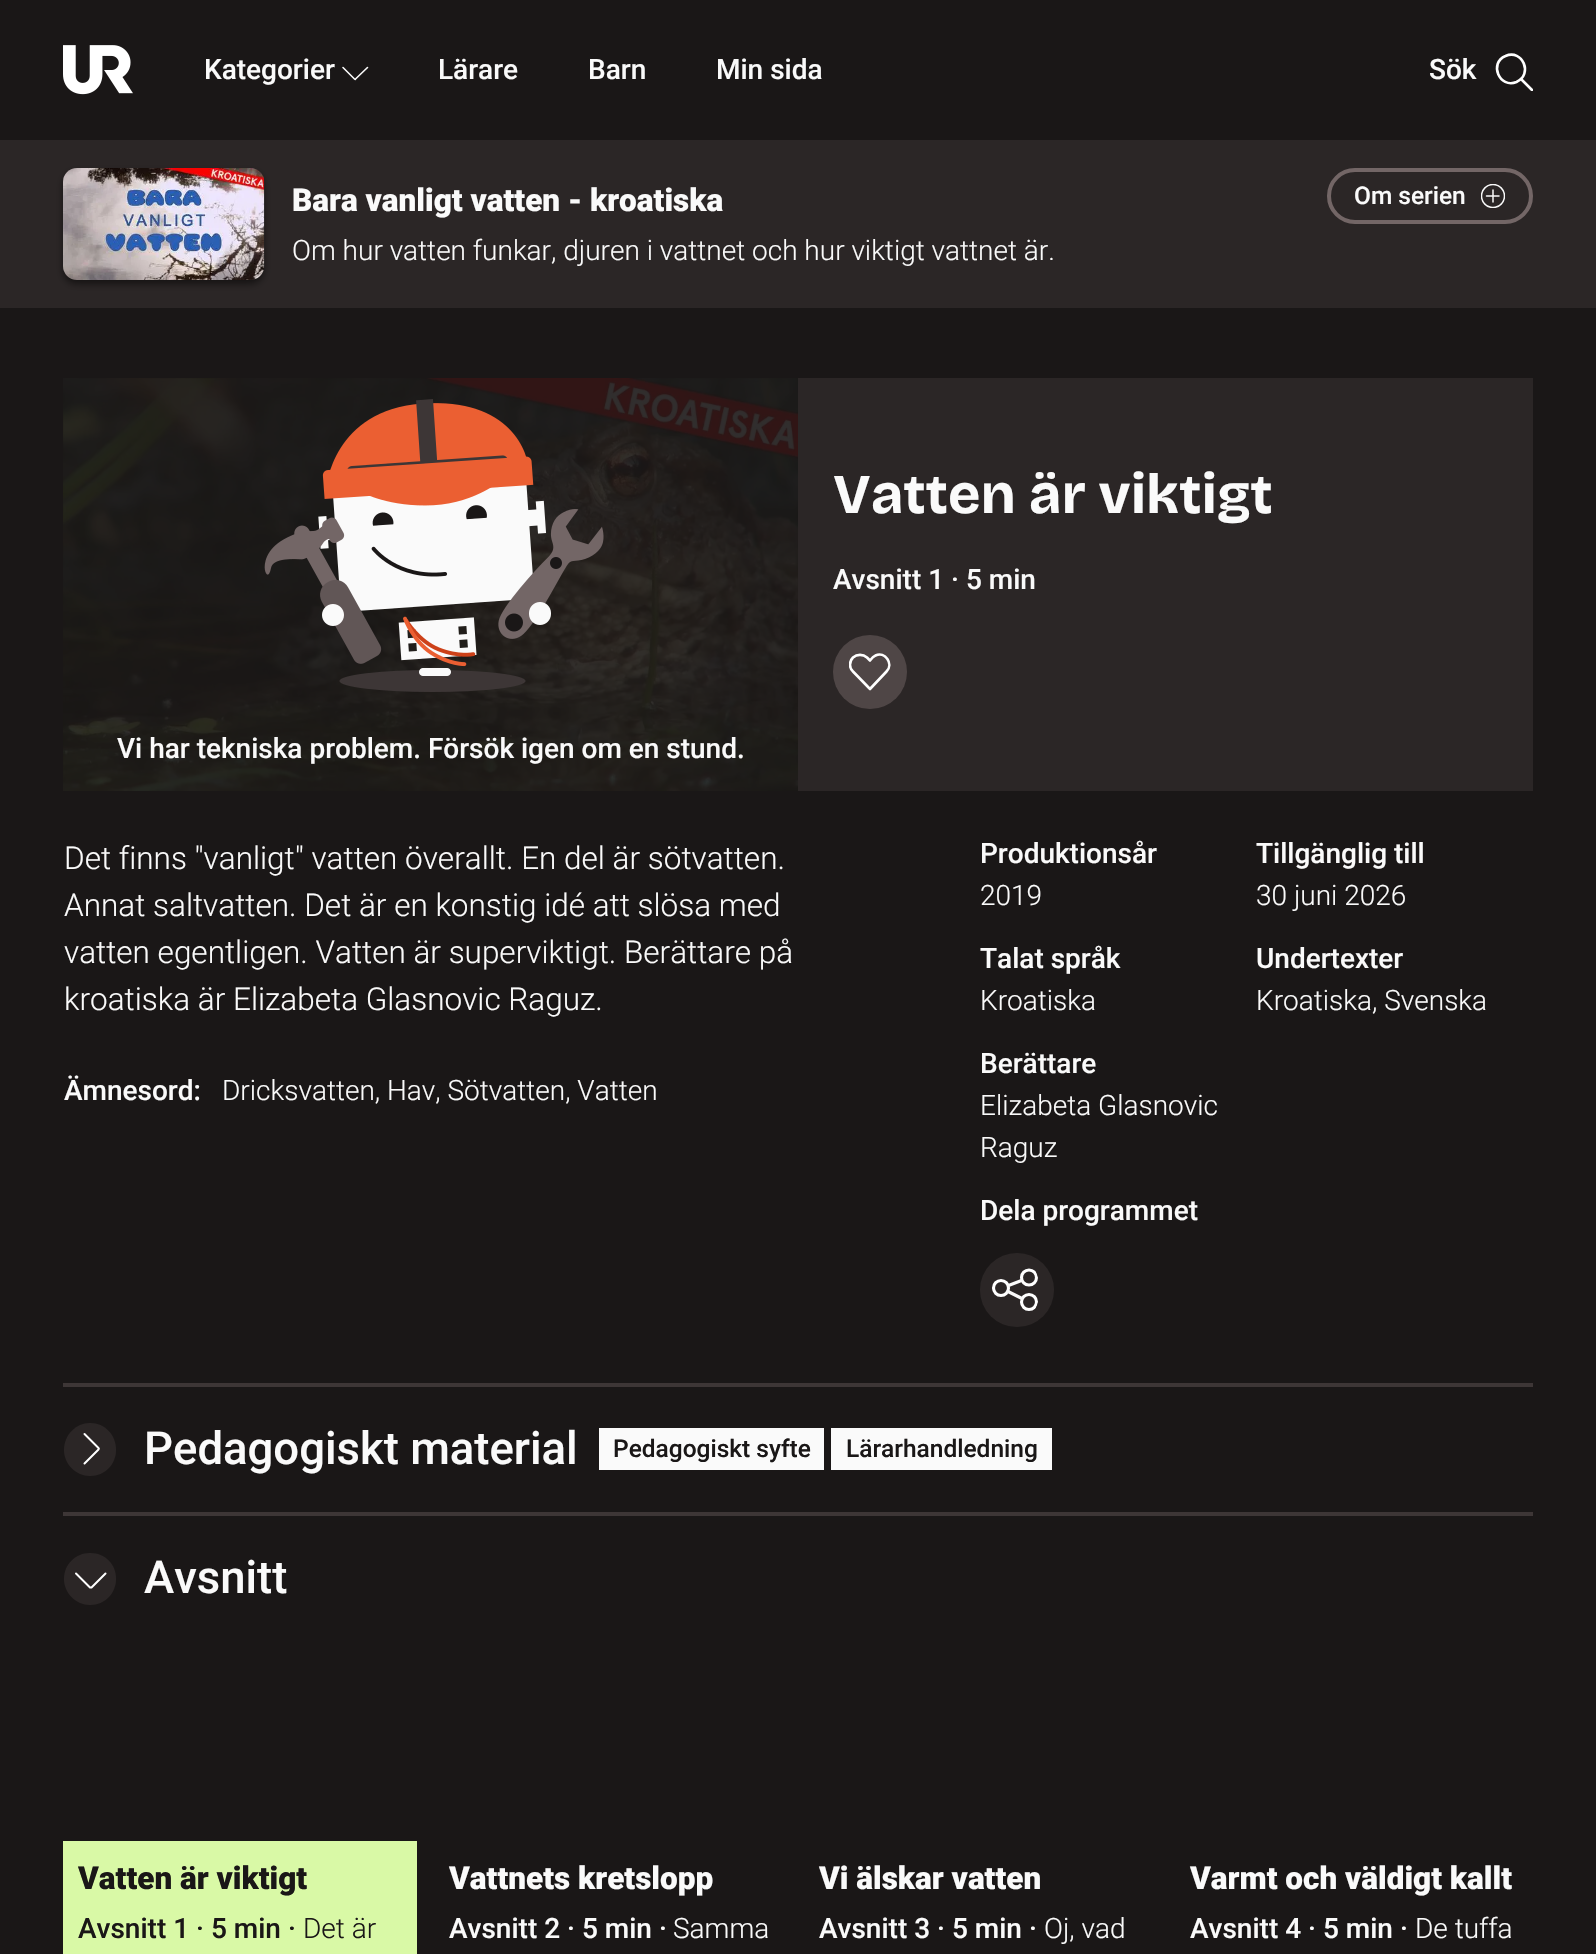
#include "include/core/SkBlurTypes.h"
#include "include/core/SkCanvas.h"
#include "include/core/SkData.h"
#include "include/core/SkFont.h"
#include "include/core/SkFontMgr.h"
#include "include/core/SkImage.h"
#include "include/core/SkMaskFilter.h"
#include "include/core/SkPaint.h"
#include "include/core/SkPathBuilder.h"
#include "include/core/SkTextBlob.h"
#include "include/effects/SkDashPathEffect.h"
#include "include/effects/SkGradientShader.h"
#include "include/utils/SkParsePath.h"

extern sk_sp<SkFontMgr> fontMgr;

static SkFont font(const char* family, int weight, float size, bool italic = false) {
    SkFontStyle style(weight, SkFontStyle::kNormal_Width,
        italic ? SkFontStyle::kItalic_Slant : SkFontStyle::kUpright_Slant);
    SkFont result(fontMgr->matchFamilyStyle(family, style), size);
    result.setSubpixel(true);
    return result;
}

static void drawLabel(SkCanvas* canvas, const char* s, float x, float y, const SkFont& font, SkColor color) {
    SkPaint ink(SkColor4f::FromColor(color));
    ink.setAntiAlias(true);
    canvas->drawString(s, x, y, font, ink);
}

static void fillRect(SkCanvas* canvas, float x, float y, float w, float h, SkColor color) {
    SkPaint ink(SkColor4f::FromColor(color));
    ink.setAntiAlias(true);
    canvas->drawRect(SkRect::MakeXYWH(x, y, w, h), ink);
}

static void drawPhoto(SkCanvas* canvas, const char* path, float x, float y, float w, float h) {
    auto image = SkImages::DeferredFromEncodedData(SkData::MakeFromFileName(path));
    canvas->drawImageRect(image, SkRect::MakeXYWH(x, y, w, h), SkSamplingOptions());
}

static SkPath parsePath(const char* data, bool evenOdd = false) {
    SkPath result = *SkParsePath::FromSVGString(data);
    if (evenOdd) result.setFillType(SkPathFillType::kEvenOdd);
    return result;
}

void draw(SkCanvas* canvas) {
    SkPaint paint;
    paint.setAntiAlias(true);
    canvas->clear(0xFF1A1717);
    drawPhoto(canvas, "assets/img1.png", 63, 45, 70, 50);
    SkFont font1 = font("Roboto", 500, 28);
    drawLabel(canvas, "Kategorier", 204, 79, font1, 0xFFFAFAFA);
    paint.setStroke(true);
    paint.setStrokeWidth(1.6f);
    paint.setStrokeCap(SkPaint::kRound_Cap);
    paint.setStrokeJoin(SkPaint::kRound_Join);
    paint.setColor(0xFFFAFAFA);
    canvas->drawPath(parsePath("M343 67.5L354.5 79C355 79.5 355.5 79.5 355.5 79L367.5 67.5"), paint);
    drawLabel(canvas, "Lärare", 438, 79, font1, 0xFFFAFAFA);
    drawLabel(canvas, "Barn", 588, 79, font1, 0xFFFAFAFA);
    drawLabel(canvas, "Min sida", 716, 79, font1, 0xFFFAFAFA);
    drawLabel(canvas, "Sök", 1429, 79, font1, 0xFFFAFAFA);
    paint.setStrokeWidth(2.6f);
    paint.setColor(0xFFFFFFFF);
    canvas->drawPath(parsePath("M1505.5 56C1522.5 48.5 1533.5 74.5 1516.5 82C1499.5 89 1488.5 63 1505.5 56Z"), paint);
    canvas->save();
    canvas->clipRect(SkRect::MakeXYWH(1491, 49, 42, 42));
    canvas->drawPath(parsePath("M1521 79L1532 90"), paint);
    canvas->restore();
    fillRect(canvas, 0, 140, 1596, 168, 0xFF2B2626);
    paint.setStroke(false);
    paint.setColor(0x80000000);
    paint.setMaskFilter(SkMaskFilter::MakeBlur(kNormal_SkBlurStyle, 3.5f));
    canvas->drawRoundRect(SkRect::MakeXYWH(63, 172, 201, 112), 14, 14, paint);
    paint.setMaskFilter(nullptr);
    drawPhoto(canvas, "assets/img2.png", 63, 168, 202, 112);
    SkFont font2 = font("Roboto", 900, 31.5f);
    drawLabel(canvas, "Bara vanligt vatten - kroatiska", 292, 211, font2, 0xFFFAFAFA);
    SkFont font3 = font("Roboto", 300, 28);
    drawLabel(canvas, "Om hur vatten funkar, djuren i vattnet och hur viktigt vattnet är.", 292, 260, font3, 0xFFFAFAFA);
    paint.setStroke(true);
    paint.setStrokeWidth(4);
    paint.setStrokeCap(SkPaint::kButt_Cap);
    paint.setStrokeJoin(SkPaint::kMiter_Join);
    paint.setColor(0xFF736666);
    canvas->drawRoundRect(SkRect::MakeXYWH(1329, 170, 202, 52), 26, 26, paint);
    SkFont font4 = font("Roboto", 500, 24.5f);
    drawLabel(canvas, "Om serien", 1354, 204, font4, 0xFFFAFAFA);
    paint.setStrokeWidth(1.5f);
    paint.setStrokeCap(SkPaint::kRound_Cap);
    paint.setStrokeJoin(SkPaint::kRound_Join);
    paint.setColor(0xFFFAFAFA);
    canvas->drawPath(parsePath("M1486.5 196H1499M1493 190V202"), paint);
    canvas->save();
    canvas->clipRect(SkRect::MakeXYWH(1481, 184, 24, 24));
    paint.setStrokeCap(SkPaint::kButt_Cap);
    paint.setStrokeJoin(SkPaint::kMiter_Join);
    canvas->drawCircle(1493, 196, 11.5f, paint);
    canvas->restore();
    fillRect(canvas, 798, 378, 735, 413, 0xFF2B2626);
    SkFont font5 = font("Bricolage Grotesque", 800, 56);
    drawLabel(canvas, "Vatten är viktigt", 833, 513, font5, 0xFFFAFAFA);
    drawLabel(canvas, "Avsnitt 1 · 5 min", 833, 589, font1, 0xFFFAFAFA);
    paint.setStroke(false);
    paint.setColor(0xFF4F4646);
    canvas->drawCircle(870, 672, 37, paint);
    canvas->save();
    canvas->clipRect(SkRect::MakeXYWH(849, 651, 42, 42));
    paint.setStroke(true);
    paint.setStrokeWidth(2.6f);
    paint.setStrokeCap(SkPaint::kRound_Cap);
    paint.setStrokeJoin(SkPaint::kRound_Join);
    paint.setColor(0xFFFFFFFF);
    canvas->drawPath(parsePath("M870 689L853 671.5C849 668 849 661.5 853 657.5C857 654 863 654 867 657.5L870 660.5C871.5 658.5 873 656.5 875.5 655.5C885 651 894 664 886.5 671.5Z"), paint);
    canvas->restore();
    drawPhoto(canvas, "assets/img3.png", 63, 378, 735, 413);
    drawPhoto(canvas, "assets/img4.png", 264, 399, 340, 293);
    drawLabel(canvas, "Vi har tekniska problem. Försök igen om en stund.", 117, 758, font1, 0xFFFAFAFA);
    SkFont font6 = font("Roboto", 300, 31.5f);
    drawLabel(canvas, "Det finns \"vanligt\" vatten överallt. En del är sötvatten.", 64, 869, font6, 0xFFFAFAFA);
    drawLabel(canvas, "Annat saltvatten. Det är en konstig idé att slösa med", 64, 916, font6, 0xFFFAFAFA);
    drawLabel(canvas, "vatten egentligen. Vatten är superviktigt. Berättare på", 64, 963, font6, 0xFFFAFAFA);
    drawLabel(canvas, "kroatiska är Elizabeta Glasnovic Raguz.", 64, 1010, font6, 0xFFFAFAFA);
    drawLabel(canvas, "Ämnesord:", 64, 1100, font1, 0xFFFAFAFA);
    drawLabel(canvas, "Dricksvatten, Hav, Sötvatten, Vatten", 222, 1100, font3, 0xFFFAFAFA);
    drawLabel(canvas, "Produktionsår", 980, 863, font1, 0xFFFAFAFA);
    drawLabel(canvas, "2019", 980, 905, font3, 0xFFFAFAFA);
    drawLabel(canvas, "Tillgänglig till", 1256, 863, font1, 0xFFFAFAFA);
    drawLabel(canvas, "30 juni 2026", 1256, 905, font3, 0xFFFAFAFA);
    drawLabel(canvas, "Talat språk", 980, 968, font1, 0xFFFAFAFA);
    drawLabel(canvas, "Kroatiska", 980, 1010, font3, 0xFFFAFAFA);
    drawLabel(canvas, "Undertexter", 1256, 968, font1, 0xFFFAFAFA);
    drawLabel(canvas, "Kroatiska, Svenska", 1256, 1010, font3, 0xFFFAFAFA);
    drawLabel(canvas, "Berättare", 980, 1073, font1, 0xFFFAFAFA);
    drawLabel(canvas, "Elizabeta Glasnovic", 980, 1115, font3, 0xFFFAFAFA);
    drawLabel(canvas, "Raguz", 980, 1157, font3, 0xFFFAFAFA);
    drawLabel(canvas, "Dela programmet", 980, 1220, font1, 0xFFFAFAFA);
    paint.setStroke(false);
    paint.setColor(0xFF2B2626);
    canvas->drawCircle(1017, 1290, 37, paint);
    paint.setStroke(true);
    paint.setStrokeWidth(3.1f);
    paint.setStrokeCap(SkPaint::kButt_Cap);
    paint.setStrokeJoin(SkPaint::kMiter_Join);
    paint.setColor(0xFFFFFFFF);
    canvas->drawCircle(1001, 1288, 7.5f, paint);
    canvas->save();
    canvas->clipPath(parsePath("M1015 1255C1028.5 1255 1039.5 1270.5 1039.5 1290C1039.5 1309 1028.5 1325 1015 1325C1001.5 1325 990.5 1309 990.5 1290C990.5 1270.5 1001.5 1255 1015 1255Z"), true);
    canvas->drawCircle(1029, 1277.5f, 7.5f, paint);
    canvas->drawCircle(1029, 1302, 7.5f, paint);
    canvas->restore();
    paint.setStrokeCap(SkPaint::kRound_Cap);
    paint.setStrokeJoin(SkPaint::kRound_Join);
    paint.setColor(0xFFFAFAFA);
    canvas->drawPath(parsePath("M1008.5 1285.5L1021.5 1280.5M1008 1291.5L1022 1298.5"), paint);
    fillRect(canvas, 63, 1383, 1470, 4, 0xFF3D3636);
    paint.setStroke(false);
    paint.setColor(0xFF2B2626);
    canvas->drawPath(parsePath("M116 1450C116 1464 105 1476 90 1476C76 1476 64 1464 64 1450C64 1435 76 1423 90 1423C105 1423 116 1435 116 1450Z"), paint);
    paint.setStroke(true);
    paint.setStrokeWidth(2);
    paint.setColor(0xFFFFFFFF);
    canvas->drawPath(parsePath("M84.5 1463.5L98.5 1449.5C99 1449 99 1448.5 98.5 1448L84.5 1434"), paint);
    SkFont font7 = font("Roboto", 500, 45.5f);
    drawLabel(canvas, "Pedagogiskt material", 144, 1464, font7, 0xFFFAFAFA);
    fillRect(canvas, 599, 1428, 225, 42, 0xFFFAFAFA);
    drawLabel(canvas, "Pedagogiskt syfte", 613, 1457, font4, 0xFF1A1717);
    fillRect(canvas, 831, 1428, 221, 42, 0xFFFAFAFA);
    drawLabel(canvas, "Lärarhandledning", 846, 1457, font4, 0xFF1A1717);
    fillRect(canvas, 63, 1512, 1470, 4, 0xFF3D3636);
    paint.setStroke(false);
    paint.setColor(0xFF2B2626);
    canvas->drawPath(parsePath("M90 1605C76 1605 64 1593 64 1579C64 1564 76 1553 90 1553C105 1553 116 1564 116 1579C116 1593 105 1605 90 1605Z"), paint);
    paint.setStroke(true);
    paint.setColor(0xFFFFFFFF);
    canvas->drawPath(parsePath("M76 1573.5L90 1587.5C90.5 1587.5 91 1587.5 91.5 1587.5L105.5 1573.5"), paint);
    drawLabel(canvas, "Avsnitt", 144, 1593, font7, 0xFFFAFAFA);
    fillRect(canvas, 63, 1841, 354, 113, 0xFFD9F9A6);
    drawLabel(canvas, "Vatten är viktigt", 78, 1889, font2, 0xFF1A1717);
    drawLabel(canvas, "Avsnitt 1 · 5 min ·", 78, 1938, font1, 0xFF1A1717);
    drawLabel(canvas, "Det är", 303, 1938, font3, 0xFF1A1717);
    drawLabel(canvas, "Vattnets kretslopp", 449, 1889, font2, 0xFFFAFAFA);
    drawLabel(canvas, "Avsnitt 2 · 5 min ·", 449, 1938, font1, 0xFFFAFAFA);
    drawLabel(canvas, "Samma", 673, 1938, font3, 0xFFFAFAFA);
    drawLabel(canvas, "Vi älskar vatten", 819, 1889, font2, 0xFFFAFAFA);
    drawLabel(canvas, "Avsnitt 3 · 5 min ·", 819, 1938, font1, 0xFFFAFAFA);
    drawLabel(canvas, "Oj, vad", 1044, 1938, font3, 0xFFFAFAFA);
    drawLabel(canvas, "Varmt och väldigt kallt", 1190, 1889, font2, 0xFFFAFAFA);
    drawLabel(canvas, "Avsnitt 4 · 5 min ·", 1190, 1938, font1, 0xFFFAFAFA);
    drawLabel(canvas, "De tuffa", 1415, 1938, font3, 0xFFFAFAFA);
}
